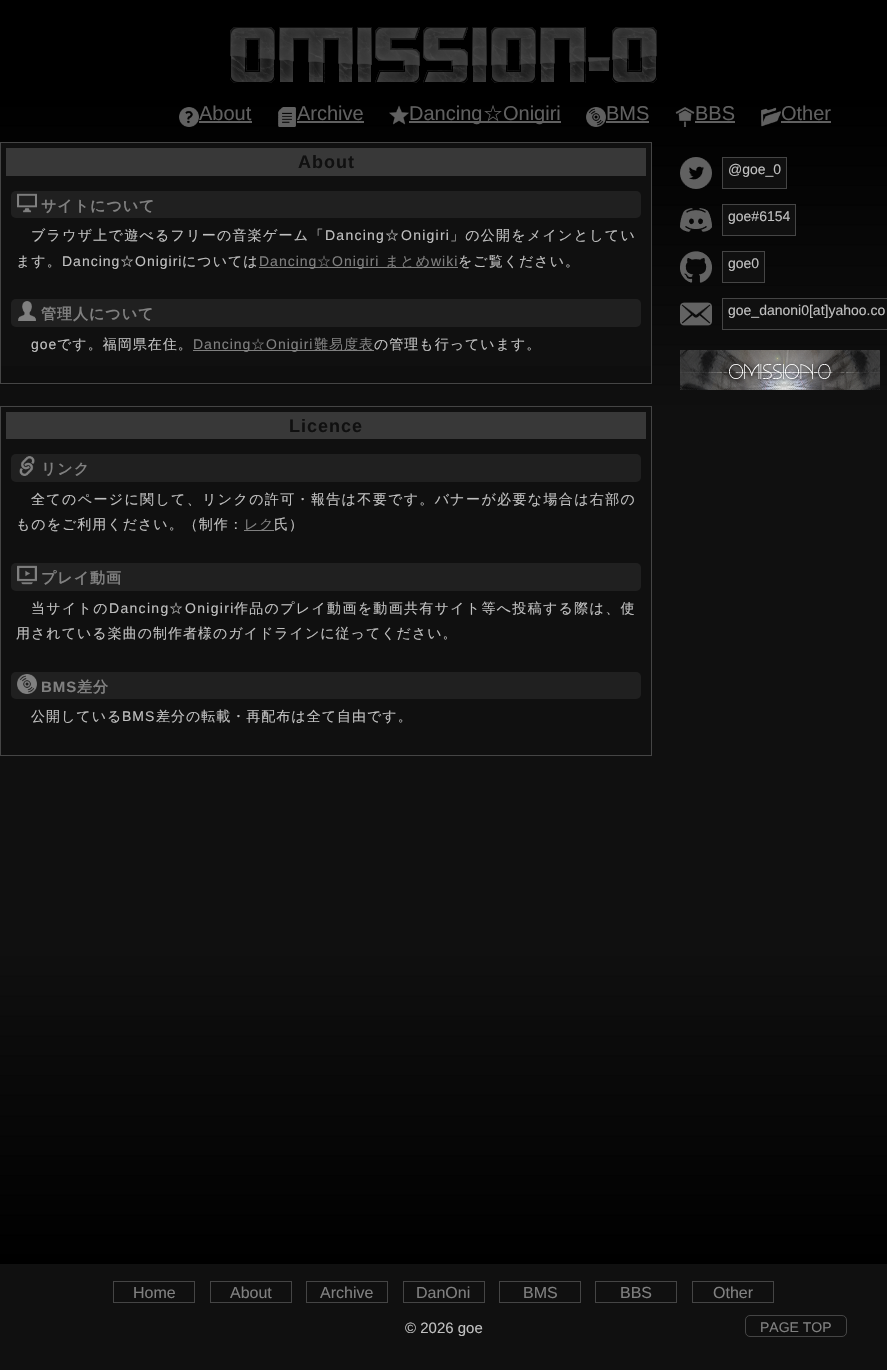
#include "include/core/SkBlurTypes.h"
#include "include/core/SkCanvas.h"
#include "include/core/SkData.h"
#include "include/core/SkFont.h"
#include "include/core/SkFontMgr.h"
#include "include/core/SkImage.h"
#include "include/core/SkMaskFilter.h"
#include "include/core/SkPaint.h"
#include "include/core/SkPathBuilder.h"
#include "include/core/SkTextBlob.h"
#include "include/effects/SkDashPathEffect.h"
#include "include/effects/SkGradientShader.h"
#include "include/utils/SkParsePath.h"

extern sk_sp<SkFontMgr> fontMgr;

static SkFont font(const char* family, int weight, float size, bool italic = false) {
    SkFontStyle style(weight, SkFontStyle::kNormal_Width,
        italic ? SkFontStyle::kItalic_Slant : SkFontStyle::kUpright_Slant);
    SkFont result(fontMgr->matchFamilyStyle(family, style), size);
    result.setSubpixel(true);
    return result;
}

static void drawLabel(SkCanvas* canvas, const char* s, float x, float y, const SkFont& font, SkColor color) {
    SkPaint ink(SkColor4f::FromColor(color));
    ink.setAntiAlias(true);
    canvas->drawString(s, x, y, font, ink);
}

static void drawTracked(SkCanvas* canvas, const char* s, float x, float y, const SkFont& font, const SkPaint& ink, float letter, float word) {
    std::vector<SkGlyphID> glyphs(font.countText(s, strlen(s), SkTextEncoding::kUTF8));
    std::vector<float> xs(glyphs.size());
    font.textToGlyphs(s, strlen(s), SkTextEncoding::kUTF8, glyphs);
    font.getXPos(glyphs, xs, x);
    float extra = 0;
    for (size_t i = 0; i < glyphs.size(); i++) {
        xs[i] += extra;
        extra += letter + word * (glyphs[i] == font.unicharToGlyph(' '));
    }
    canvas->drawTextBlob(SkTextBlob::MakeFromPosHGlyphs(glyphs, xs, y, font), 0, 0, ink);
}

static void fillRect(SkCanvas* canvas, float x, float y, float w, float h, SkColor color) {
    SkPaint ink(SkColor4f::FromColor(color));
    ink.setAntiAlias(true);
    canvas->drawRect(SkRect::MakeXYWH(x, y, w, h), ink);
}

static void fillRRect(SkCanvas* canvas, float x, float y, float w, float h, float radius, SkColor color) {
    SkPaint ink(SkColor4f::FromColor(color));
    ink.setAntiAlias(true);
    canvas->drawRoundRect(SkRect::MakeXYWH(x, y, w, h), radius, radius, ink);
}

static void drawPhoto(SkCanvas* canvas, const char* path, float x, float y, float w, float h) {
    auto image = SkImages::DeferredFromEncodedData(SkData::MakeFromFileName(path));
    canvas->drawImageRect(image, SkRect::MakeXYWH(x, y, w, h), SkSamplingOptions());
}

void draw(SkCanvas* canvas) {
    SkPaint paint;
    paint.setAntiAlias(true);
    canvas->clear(0xFF101010);
    drawPhoto(canvas, "assets/img1.png", 0, 0, 887, 1264);
    drawPhoto(canvas, "assets/img2.png", 230, 27, 427, 56);
    drawPhoto(canvas, "assets/img3.png", 179, 107, 20, 20);
    SkFont font1 = font("Liberation Sans", 400, 20);
    drawLabel(canvas, "About", 199, 120, font1, 0xFF606060);
    fillRect(canvas, 199, 121, 53, 2, 0xFF606060);
    drawPhoto(canvas, "assets/img4.png", 278, 107, 18, 20);
    drawLabel(canvas, "Archive", 297, 120, font1, 0xFF606060);
    fillRect(canvas, 297, 121, 67, 2, 0xFF606060);
    drawPhoto(canvas, "assets/img5.png", 389, 105, 20, 20);
    fillRect(canvas, 409, 121, 152, 2, 0xFF606060);
    drawLabel(canvas, "Dancing", 409, 120, font1, 0xFF606060);
    SkFont font2 = font("WenQuanYi Zen Hei", 500, 20);
    drawLabel(canvas, "☆", 483, 120, font2, 0xFF606060);
    drawLabel(canvas, "Onigiri", 503, 120, font1, 0xFF606060);
    drawPhoto(canvas, "assets/img6.png", 586, 107, 20, 20);
    drawLabel(canvas, "BMS", 606, 120, font1, 0xFF606060);
    fillRect(canvas, 606, 121, 43, 2, 0xFF606060);
    drawPhoto(canvas, "assets/img7.png", 675, 107, 20, 20);
    drawLabel(canvas, "BBS", 695, 120, font1, 0xFF606060);
    fillRect(canvas, 695, 121, 40, 2, 0xFF606060);
    drawPhoto(canvas, "assets/img8.png", 761, 107, 20, 20);
    drawLabel(canvas, "Other", 781, 120, font1, 0xFF606060);
    fillRect(canvas, 781, 121, 50, 2, 0xFF606060);
    fillRect(canvas, 1, 143, 650, 223, 0xFF101010);
    paint.setStroke(true);
    paint.setStrokeWidth(1);
    paint.setColor(0xFF454545);
    canvas->drawRect(SkRect::MakeXYWH(0.5f, 142.5f, 651, 241), paint);
    fillRect(canvas, 6, 148, 640, 28, 0xFF383838);
    SkFont font3 = font("Liberation Sans", 700, 18);
    paint.setStroke(false);
    paint.setColor(0xFF101010);
    drawTracked(canvas, "About", 298, 168, font3, paint, 1, 0);
    fillRRect(canvas, 11, 191, 630, 27, 5, 0xFF202020);
    drawPhoto(canvas, "assets/img9.png", 17, 193, 20, 20);
    SkFont font4 = font("WenQuanYi Zen Hei", 700, 15);
    paint.setColor(0xFF808080);
    drawTracked(canvas, "サイトについて", 41, 211, font4, paint, 1, 0);
    SkFont font5 = font("WenQuanYi Zen Hei", 500, 14);
    paint.setColor(0xFFC0C0C0);
    drawTracked(canvas, "ブラウザ上で遊べるフリーの音楽ゲーム「", 31, 240, font5, paint, 1.25f, 0);
    SkFont font6 = font("Liberation Sans", 400, 14);
    drawTracked(canvas, "Dancing", 325, 240, font6, paint, 1.25f, 0);
    drawTracked(canvas, "☆", 385, 240, font5, paint, 1.25f, 0);
    drawTracked(canvas, "Onigiri", 401, 240, font6, paint, 1.25f, 0);
    drawTracked(canvas, "」の公開をメインとしてい", 450, 240, font5, paint, 1.25f, 0);
    drawTracked(canvas, "ます。", 16, 266, font5, paint, 1, 0);
    drawTracked(canvas, "Dancing", 62, 266, font6, paint, 1, 0);
    drawTracked(canvas, "☆", 120, 266, font5, paint, 1, 0);
    drawTracked(canvas, "Onigiri", 135, 266, font6, paint, 1, 0);
    drawTracked(canvas, "については", 182, 266, font5, paint, 1, 0);
    fillRect(canvas, 259, 267, 199, 1, 0xFF808080);
    paint.setColor(0xFF808080);
    drawTracked(canvas, "Dancing", 259, 266, font6, paint, 1, 0);
    drawTracked(canvas, "☆", 317, 266, font5, paint, 1, 0);
    drawTracked(canvas, "Onigiri", 332, 266, font6, paint, 1, 0);
    drawTracked(canvas, "まとめ", 385, 266, font5, paint, 1, 0);
    drawTracked(canvas, "wiki", 431, 266, font6, paint, 1, 0);
    paint.setColor(0xFFC0C0C0);
    drawTracked(canvas, "をご覧ください。", 458, 266, font5, paint, 1, 0);
    fillRRect(canvas, 11, 299, 630, 28, 5, 0xFF202020);
    drawPhoto(canvas, "assets/img10.png", 18, 301, 18, 20);
    paint.setColor(0xFF808080);
    drawTracked(canvas, "管理人について", 41, 319, font4, paint, 1, 0);
    paint.setColor(0xFFC0C0C0);
    drawTracked(canvas, "goe", 31, 349, font6, paint, 1, 0);
    drawTracked(canvas, "です。福岡県在住。", 57, 349, font5, paint, 1, 0);
    fillRect(canvas, 193, 350, 181, 1, 0xFF808080);
    paint.setColor(0xFF808080);
    drawTracked(canvas, "Dancing", 193, 349, font6, paint, 1, 0);
    drawTracked(canvas, "☆", 251, 349, font5, paint, 1, 0);
    drawTracked(canvas, "Onigiri", 266, 349, font6, paint, 1, 0);
    drawTracked(canvas, "難易度表", 314, 349, font5, paint, 1, 0);
    paint.setColor(0xFFC0C0C0);
    drawTracked(canvas, "の管理も行っています。", 374, 349, font5, paint, 1, 0);
    paint.setStroke(true);
    paint.setColor(0xFF454545);
    canvas->drawRect(SkRect::MakeXYWH(0.5f, 406.5f, 651, 349), paint);
    fillRect(canvas, 6, 412, 640, 27, 0xFF383838);
    paint.setStroke(false);
    paint.setColor(0xFF101010);
    drawTracked(canvas, "Licence", 289, 432, font3, paint, 1, 0);
    fillRRect(canvas, 11, 454, 630, 28, 5, 0xFF202020);
    drawPhoto(canvas, "assets/img11.png", 19, 456, 16, 20);
    paint.setColor(0xFF808080);
    drawTracked(canvas, "リンク", 41, 474, font4, paint, 1, 0);
    paint.setColor(0xFFC0C0C0);
    drawTracked(canvas, "全てのページに関して、リンクの許可・報告は不要です。バナーが必要な場合は右部の", 31, 504, font5, paint, 1.35f, 0);
    drawTracked(canvas, "ものをご利用ください。（制作：", 16, 529, font5, paint, 1, 0);
    fillRect(canvas, 244, 530, 30, 1, 0xFF808080);
    paint.setColor(0xFF808080);
    drawTracked(canvas, "レク", 244, 529, font5, paint, 1, 0);
    paint.setColor(0xFFC0C0C0);
    drawTracked(canvas, "氏）", 274, 529, font5, paint, 1, 0);
    fillRRect(canvas, 11, 563, 630, 28, 5, 0xFF202020);
    drawPhoto(canvas, "assets/img12.png", 17, 565, 20, 20);
    paint.setColor(0xFF808080);
    drawTracked(canvas, "プレイ動画", 41, 583, font4, paint, 1, 0);
    paint.setColor(0xFFC0C0C0);
    drawTracked(canvas, "当サイトの", 31, 613, font5, paint, 1.3f, 0);
    drawTracked(canvas, "Dancing", 109, 613, font6, paint, 1.3f, 0);
    drawTracked(canvas, "☆", 169, 613, font5, paint, 1.3f, 0);
    drawTracked(canvas, "Onigiri", 185, 613, font6, paint, 1.3f, 0);
    drawTracked(canvas, "作品のプレイ動画を動画共有サイト等へ投稿する際は、使", 234, 613, font5, paint, 1.3f, 0);
    drawTracked(canvas, "用されている楽曲の制作者様のガイドラインに従ってください。", 16, 638, font5, paint, 1, 0);
    fillRRect(canvas, 11, 672, 630, 27, 5, 0xFF202020);
    drawPhoto(canvas, "assets/img13.png", 17, 674, 20, 20);
    SkFont font7 = font("Liberation Sans", 700, 15);
    paint.setColor(0xFF808080);
    drawTracked(canvas, "BMS", 41, 692, font7, paint, 1, 0);
    drawTracked(canvas, "差分", 77, 692, font4, paint, 1, 0);
    paint.setColor(0xFFC0C0C0);
    drawTracked(canvas, "公開している", 31, 721, font5, paint, 1, 0);
    drawTracked(canvas, "BMS", 122, 721, font6, paint, 1, 0);
    drawTracked(canvas, "差分の転載・再配布は全て自由です。", 156, 721, font5, paint, 1, 0);
    drawPhoto(canvas, "assets/img14.png", 680, 157, 32, 32);
    paint.setColor(0xFF101010);
    canvas->drawRect(SkRect::MakeXYWH(722.5f, 157.5f, 64, 31), paint);
    paint.setStroke(true);
    paint.setColor(0xFF454545);
    canvas->drawRect(SkRect::MakeXYWH(722.5f, 157.5f, 64, 31), paint);
    drawLabel(canvas, "@goe_0", 728, 174, font6, 0xFFC0C0C0);
    drawPhoto(canvas, "assets/img15.png", 680, 208, 32, 24);
    paint.setStroke(false);
    paint.setColor(0xFF101010);
    canvas->drawRect(SkRect::MakeXYWH(722.5f, 204.5f, 73, 31), paint);
    paint.setStroke(true);
    paint.setColor(0xFF454545);
    canvas->drawRect(SkRect::MakeXYWH(722.5f, 204.5f, 73, 31), paint);
    drawLabel(canvas, "goe#6154", 728, 221, font6, 0xFFC0C0C0);
    drawPhoto(canvas, "assets/img16.png", 680, 251, 32, 32);
    paint.setStroke(false);
    paint.setColor(0xFF101010);
    canvas->drawRect(SkRect::MakeXYWH(722.5f, 251.5f, 42, 31), paint);
    paint.setStroke(true);
    paint.setColor(0xFF454545);
    canvas->drawRect(SkRect::MakeXYWH(722.5f, 251.5f, 42, 31), paint);
    drawLabel(canvas, "goe0", 728, 268, font6, 0xFFC0C0C0);
    drawPhoto(canvas, "assets/img17.png", 680, 302, 32, 24);
    paint.setStroke(false);
    paint.setColor(0xFF101010);
    canvas->drawRect(SkRect::MakeXYWH(722.5f, 298.5f, 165, 31), paint);
    paint.setStroke(true);
    paint.setColor(0xFF454545);
    canvas->drawRect(SkRect::MakeXYWH(722.5f, 298.5f, 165, 31), paint);
    drawLabel(canvas, "goe_danoni0[at]yahoo.co", 728, 315, font6, 0xFFC0C0C0);
    drawPhoto(canvas, "assets/img18.png", 680, 350, 200, 40);
    canvas->drawRect(SkRect::MakeXYWH(113.5f, 1281.5f, 81, 21), paint);
    SkFont font8 = font("Liberation Sans", 400, 16);
    drawLabel(canvas, "Home", 133, 1298, font8, 0xFF808080);
    canvas->drawRect(SkRect::MakeXYWH(210.5f, 1281.5f, 81, 21), paint);
    drawLabel(canvas, "About", 230, 1298, font8, 0xFF808080);
    canvas->drawRect(SkRect::MakeXYWH(306.5f, 1281.5f, 81, 21), paint);
    drawLabel(canvas, "Archive", 320, 1298, font8, 0xFF808080);
    canvas->drawRect(SkRect::MakeXYWH(403.5f, 1281.5f, 81, 21), paint);
    drawLabel(canvas, "DanOni", 416, 1298, font8, 0xFF808080);
    canvas->drawRect(SkRect::MakeXYWH(499.5f, 1281.5f, 81, 21), paint);
    drawLabel(canvas, "BMS", 523, 1298, font8, 0xFF808080);
    canvas->drawRect(SkRect::MakeXYWH(595.5f, 1281.5f, 81, 21), paint);
    drawLabel(canvas, "BBS", 620, 1298, font8, 0xFF808080);
    canvas->drawRect(SkRect::MakeXYWH(692.5f, 1281.5f, 81, 21), paint);
    drawLabel(canvas, "Other", 713, 1298, font8, 0xFF808080);
    SkFont font9 = font("Liberation Sans", 400, 15);
    drawLabel(canvas, "© 2026 goe", 405, 1333, font9, 0xFFC0C0C0);
    canvas->drawRoundRect(SkRect::MakeXYWH(745.5f, 1315.5f, 101, 21), 4.5f, 4.5f, paint);
    drawLabel(canvas, "PAGE TOP", 760, 1332, font6, 0xFF808080);
}
